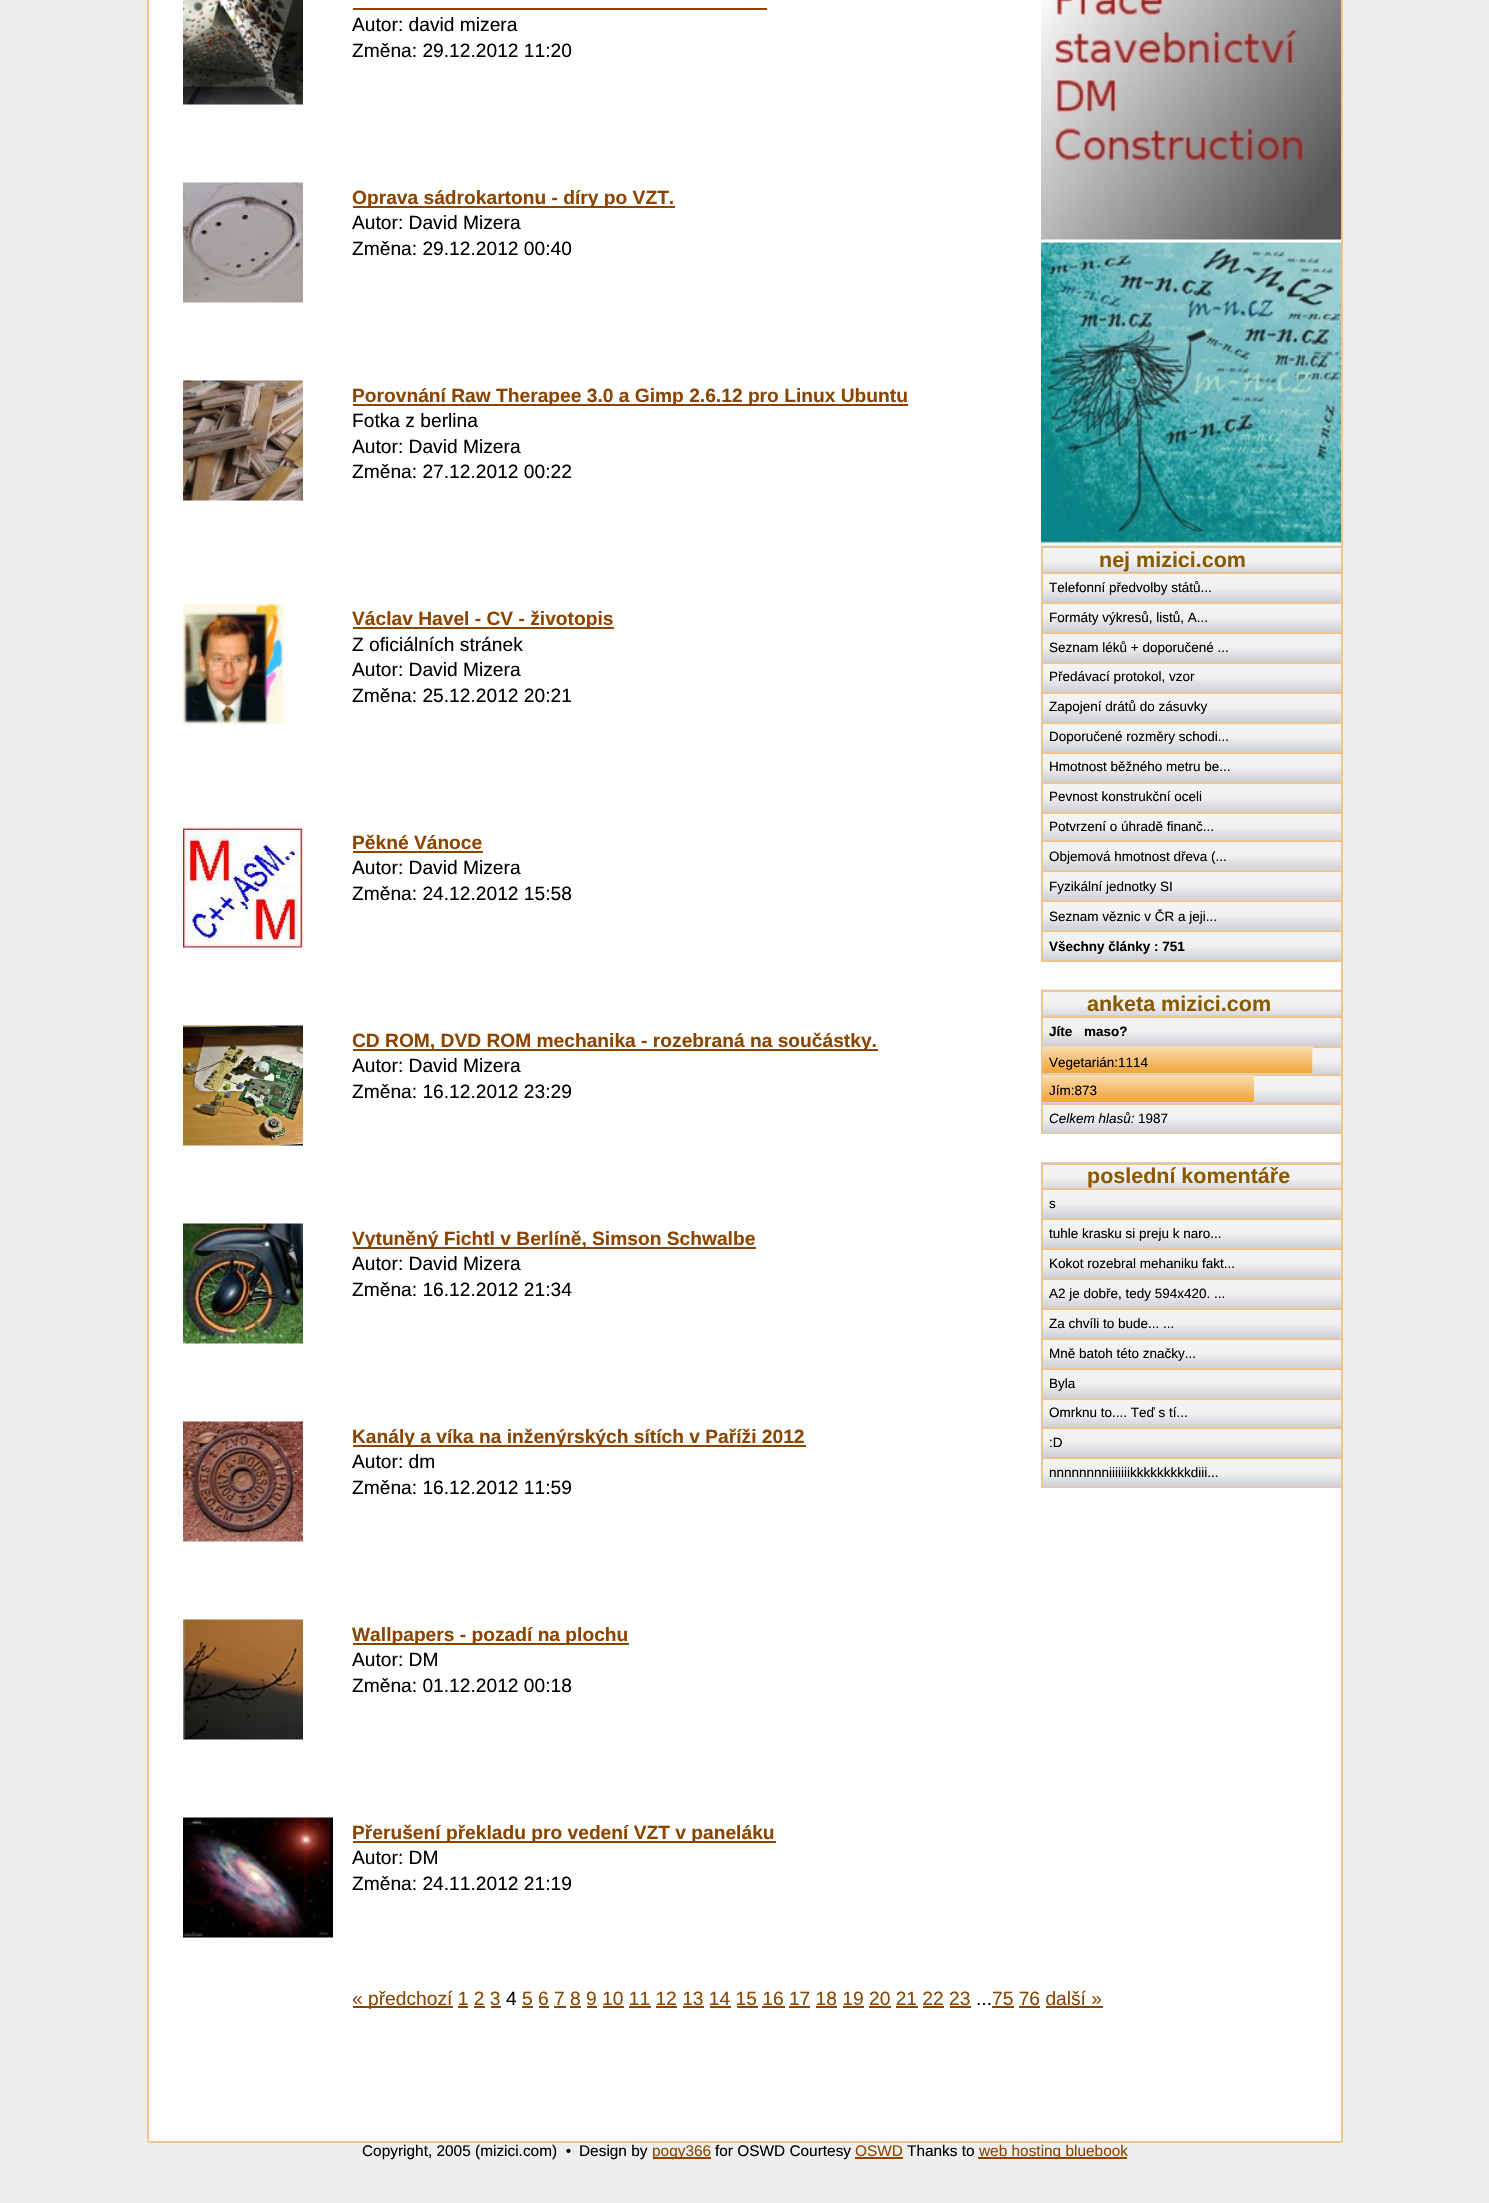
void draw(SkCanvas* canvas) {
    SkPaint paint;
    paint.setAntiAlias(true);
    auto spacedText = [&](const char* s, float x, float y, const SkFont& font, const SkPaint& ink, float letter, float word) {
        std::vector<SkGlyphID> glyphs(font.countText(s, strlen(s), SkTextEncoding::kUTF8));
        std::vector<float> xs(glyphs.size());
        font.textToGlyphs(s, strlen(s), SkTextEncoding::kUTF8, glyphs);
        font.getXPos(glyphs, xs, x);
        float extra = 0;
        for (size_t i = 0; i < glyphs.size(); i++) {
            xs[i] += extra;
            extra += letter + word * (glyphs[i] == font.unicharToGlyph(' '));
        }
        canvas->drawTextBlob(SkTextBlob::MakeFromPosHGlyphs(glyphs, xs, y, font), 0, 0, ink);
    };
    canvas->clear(0xFFEEEEEE);
    paint.setColor(0xFFFFFFFF);
    canvas->drawRect(SkRect::MakeXYWH(149, 0, 1192, 2141), paint);
    paint.setColor(0xFFEEC591);
    canvas->drawRect(SkRect::MakeXYWH(1341, 0, 2, 2142), paint);
    canvas->drawRect(SkRect::MakeXYWH(147, 0, 2, 2142), paint);
    canvas->drawImageRect(SkImages::DeferredFromEncodedData(SkData::MakeFromFileName("img1.png")), SkRect::MakeXYWH(183, 0, 120, 105), SkSamplingOptions());
    paint.setColor(0xFF8B4500);
    canvas->drawRect(SkRect::MakeXYWH(353, 8, 414, 2), paint);
    SkFont font1(fontMgr->matchFamilyStyle("Liberation Sans", SkFontStyle::Normal()), 19.2f);
    font1.setSubpixel(true);
    paint.setColor(0xFF000000);
    canvas->drawString("Autor: david mizera", 352, 31, font1, paint);
    canvas->drawString("Změna: 29.12.2012 11:20", 352, 57, font1, paint);
    canvas->drawImageRect(SkImages::DeferredFromEncodedData(SkData::MakeFromFileName("img2.png")), SkRect::MakeXYWH(183, 182, 120, 121), SkSamplingOptions());
    paint.setColor(0xFF8B4500);
    canvas->drawRect(SkRect::MakeXYWH(353, 206, 322, 2), paint);
    SkFont font2(fontMgr->matchFamilyStyle("Liberation Sans", SkFontStyle::Bold()), 19.2f);
    font2.setSubpixel(true);
    canvas->drawString("Oprava sádrokartonu - díry po VZT.", 352, 204, font2, paint);
    paint.setColor(0xFF000000);
    canvas->drawString("Autor: David Mizera", 352, 229, font1, paint);
    canvas->drawString("Změna: 29.12.2012 00:40", 352, 255, font1, paint);
    canvas->drawImageRect(SkImages::DeferredFromEncodedData(SkData::MakeFromFileName("img3.png")), SkRect::MakeXYWH(183, 380, 120, 121), SkSamplingOptions());
    paint.setColor(0xFF8B4500);
    canvas->drawRect(SkRect::MakeXYWH(353, 404, 555, 2), paint);
    canvas->drawString("Porovnání Raw Therapee 3.0 a Gimp 2.6.12 pro Linux Ubuntu", 352, 402, font2, paint);
    paint.setColor(0xFF000000);
    canvas->drawString("Fotka z berlina", 352, 427, font1, paint);
    canvas->drawString("Autor: David Mizera", 352, 453, font1, paint);
    canvas->drawString("Změna: 27.12.2012 00:22", 352, 478, font1, paint);
    canvas->drawImageRect(SkImages::DeferredFromEncodedData(SkData::MakeFromFileName("img4.png")), SkRect::MakeXYWH(183, 604, 101, 120), SkSamplingOptions());
    paint.setColor(0xFF8B4500);
    canvas->drawRect(SkRect::MakeXYWH(353, 627, 261, 2), paint);
    canvas->drawString("Václav Havel - CV - životopis", 352, 625, font2, paint);
    paint.setColor(0xFF000000);
    canvas->drawString("Z oficiálních stránek", 352, 651, font1, paint);
    canvas->drawString("Autor: David Mizera", 352, 676, font1, paint);
    canvas->drawString("Změna: 25.12.2012 20:21", 352, 702, font1, paint);
    canvas->drawImageRect(SkImages::DeferredFromEncodedData(SkData::MakeFromFileName("img5.png")), SkRect::MakeXYWH(1041, 0, 300, 240), SkSamplingOptions());
    canvas->drawImageRect(SkImages::DeferredFromEncodedData(SkData::MakeFromFileName("img6.png")), SkRect::MakeXYWH(1041, 242, 300, 301), SkSamplingOptions());
    canvas->drawImageRect(SkImages::DeferredFromEncodedData(SkData::MakeFromFileName("img7.png")), SkRect::MakeXYWH(1041, 545, 300, 26), SkSamplingOptions());
    paint.setColor(0xFFEEC591);
    canvas->drawRect(SkRect::MakeXYWH(1041, 546, 300, 2), paint);
    canvas->drawRect(SkRect::MakeXYWH(1041, 546, 2, 26), paint);
    canvas->drawImageRect(SkImages::DeferredFromEncodedData(SkData::MakeFromFileName("img9.png")), SkRect::MakeXYWH(1041, 571, 300, 30), SkSamplingOptions());
    SkFont font3(fontMgr->matchFamilyStyle("Liberation Sans", SkFontStyle::Bold()), 21.5f);
    font3.setSubpixel(true);
    paint.setColor(0xFF8B5A00);
    canvas->drawString("nej mizici.com", 1099, 567, font3, paint);
    canvas->drawImageRect(SkImages::DeferredFromEncodedData(SkData::MakeFromFileName("img8.png")), SkRect::MakeXYWH(1043, 839, 298, 91), SkSamplingOptions());
    paint.setColor(0xFFEEC591);
    canvas->drawRect(SkRect::MakeXYWH(1041, 572, 300, 2), paint);
    canvas->drawRect(SkRect::MakeXYWH(1041, 572, 2, 30), paint);
    SkFont font4(fontMgr->matchFamilyStyle("Liberation Sans", SkFontStyle::Normal()), 13.5f);
    font4.setSubpixel(true);
    paint.setColor(0xFF000000);
    canvas->drawString("Telefonní předvolby států...", 1049, 592, font4, paint);
    canvas->drawImageRect(SkImages::DeferredFromEncodedData(SkData::MakeFromFileName("img9.png")), SkRect::MakeXYWH(1041, 601, 300, 30), SkSamplingOptions());
    paint.setColor(0xFFEEC591);
    canvas->drawRect(SkRect::MakeXYWH(1041, 602, 300, 2), paint);
    canvas->drawRect(SkRect::MakeXYWH(1041, 602, 2, 30), paint);
    paint.setColor(0xFF000000);
    canvas->drawString("Formáty výkresů, listů, A...", 1049, 622, font4, paint);
    canvas->drawImageRect(SkImages::DeferredFromEncodedData(SkData::MakeFromFileName("img9.png")), SkRect::MakeXYWH(1041, 631, 300, 30), SkSamplingOptions());
    paint.setColor(0xFFEEC591);
    canvas->drawRect(SkRect::MakeXYWH(1041, 632, 300, 2), paint);
    canvas->drawRect(SkRect::MakeXYWH(1041, 632, 2, 30), paint);
    paint.setColor(0xFF000000);
    canvas->drawString("Seznam léků + doporučené ...", 1049, 652, font4, paint);
    canvas->drawImageRect(SkImages::DeferredFromEncodedData(SkData::MakeFromFileName("img9.png")), SkRect::MakeXYWH(1041, 661, 300, 30), SkSamplingOptions());
    paint.setColor(0xFFEEC591);
    canvas->drawRect(SkRect::MakeXYWH(1041, 662, 300, 2), paint);
    canvas->drawRect(SkRect::MakeXYWH(1041, 662, 2, 30), paint);
    paint.setColor(0xFF000000);
    canvas->drawString("Předávací protokol, vzor", 1049, 681, font4, paint);
    canvas->drawImageRect(SkImages::DeferredFromEncodedData(SkData::MakeFromFileName("img9.png")), SkRect::MakeXYWH(1041, 691, 300, 30), SkSamplingOptions());
    paint.setColor(0xFFEEC591);
    canvas->drawRect(SkRect::MakeXYWH(1041, 692, 300, 2), paint);
    canvas->drawRect(SkRect::MakeXYWH(1041, 692, 2, 30), paint);
    paint.setColor(0xFF000000);
    canvas->drawString("Zapojení drátů do zásuvky", 1049, 711, font4, paint);
    canvas->drawImageRect(SkImages::DeferredFromEncodedData(SkData::MakeFromFileName("img9.png")), SkRect::MakeXYWH(1041, 721, 300, 30), SkSamplingOptions());
    paint.setColor(0xFFEEC591);
    canvas->drawRect(SkRect::MakeXYWH(1041, 722, 300, 2), paint);
    canvas->drawRect(SkRect::MakeXYWH(1041, 722, 2, 30), paint);
    paint.setColor(0xFF000000);
    canvas->drawString("Doporučené rozměry schodi...", 1049, 741, font4, paint);
    canvas->drawImageRect(SkImages::DeferredFromEncodedData(SkData::MakeFromFileName("img9.png")), SkRect::MakeXYWH(1041, 751, 300, 30), SkSamplingOptions());
    paint.setColor(0xFFEEC591);
    canvas->drawRect(SkRect::MakeXYWH(1041, 752, 300, 2), paint);
    canvas->drawRect(SkRect::MakeXYWH(1041, 752, 2, 30), paint);
    paint.setColor(0xFF000000);
    canvas->drawString("Hmotnost běžného metru be...", 1049, 771, font4, paint);
    canvas->drawImageRect(SkImages::DeferredFromEncodedData(SkData::MakeFromFileName("img9.png")), SkRect::MakeXYWH(1041, 781, 300, 30), SkSamplingOptions());
    paint.setColor(0xFFEEC591);
    canvas->drawRect(SkRect::MakeXYWH(1041, 782, 300, 2), paint);
    canvas->drawRect(SkRect::MakeXYWH(1041, 782, 2, 30), paint);
    paint.setColor(0xFF000000);
    canvas->drawString("Pevnost konstrukční oceli", 1049, 801, font4, paint);
    canvas->drawImageRect(SkImages::DeferredFromEncodedData(SkData::MakeFromFileName("img10.png")), SkRect::MakeXYWH(1041, 811, 300, 29), SkSamplingOptions());
    paint.setColor(0xFFEEC591);
    canvas->drawRect(SkRect::MakeXYWH(1041, 812, 300, 2), paint);
    canvas->drawRect(SkRect::MakeXYWH(1041, 812, 2, 28), paint);
    paint.setColor(0xFF000000);
    canvas->drawString("Potvrzení o úhradě finanč...", 1049, 831, font4, paint);
    canvas->drawImageRect(SkImages::DeferredFromEncodedData(SkData::MakeFromFileName("img11.png")), SkRect::MakeXYWH(1041, 839, 300, 31), SkSamplingOptions());
    paint.setColor(0xFFEEC591);
    canvas->drawRect(SkRect::MakeXYWH(1041, 840, 300, 2), paint);
    canvas->drawRect(SkRect::MakeXYWH(1041, 840, 2, 30), paint);
    paint.setColor(0xFF000000);
    canvas->drawString("Objemová hmotnost dřeva (...", 1049, 861, font4, paint);
    canvas->drawImageRect(SkImages::DeferredFromEncodedData(SkData::MakeFromFileName("img12.png")), SkRect::MakeXYWH(1041, 869, 300, 31), SkSamplingOptions());
    paint.setColor(0xFFEEC591);
    canvas->drawRect(SkRect::MakeXYWH(1041, 870, 300, 2), paint);
    canvas->drawRect(SkRect::MakeXYWH(1041, 870, 2, 30), paint);
    paint.setColor(0xFF000000);
    canvas->drawString("Fyzikální jednotky SI", 1049, 891, font4, paint);
    canvas->drawImageRect(SkImages::DeferredFromEncodedData(SkData::MakeFromFileName("img12.png")), SkRect::MakeXYWH(1041, 899, 300, 31), SkSamplingOptions());
    paint.setColor(0xFFEEC591);
    canvas->drawRect(SkRect::MakeXYWH(1041, 900, 300, 2), paint);
    canvas->drawRect(SkRect::MakeXYWH(1041, 900, 2, 30), paint);
    paint.setColor(0xFF000000);
    canvas->drawString("Seznam věznic v ČR a jeji...", 1049, 921, font4, paint);
    canvas->drawImageRect(SkImages::DeferredFromEncodedData(SkData::MakeFromFileName("img13.png")), SkRect::MakeXYWH(1041, 929, 300, 31), SkSamplingOptions());
    paint.setColor(0xFFEEC591);
    canvas->drawRect(SkRect::MakeXYWH(1041, 930, 300, 2), paint);
    canvas->drawRect(SkRect::MakeXYWH(1041, 960, 300, 2), paint);
    canvas->drawRect(SkRect::MakeXYWH(1041, 930, 2, 32), paint);
    SkFont font5(fontMgr->matchFamilyStyle("Liberation Sans", SkFontStyle::Bold()), 13.5f);
    font5.setSubpixel(true);
    paint.setColor(0xFF000000);
    canvas->drawString("Všechny články : 751", 1049, 951, font5, paint);
    canvas->drawImageRect(SkImages::DeferredFromEncodedData(SkData::MakeFromFileName("img7.png")), SkRect::MakeXYWH(1041, 989, 300, 26), SkSamplingOptions());
    paint.setColor(0xFFEEC591);
    canvas->drawRect(SkRect::MakeXYWH(1041, 990, 300, 2), paint);
    canvas->drawRect(SkRect::MakeXYWH(1041, 990, 2, 26), paint);
    paint.setColor(0xFF8B5A00);
    canvas->drawString("anketa mizici.com", 1087, 1011, font3, paint);
    canvas->drawImageRect(SkImages::DeferredFromEncodedData(SkData::MakeFromFileName("img14.png")), SkRect::MakeXYWH(1313, 1073, 28, 1), SkSamplingOptions());
    canvas->drawImageRect(SkImages::DeferredFromEncodedData(SkData::MakeFromFileName("img9.png")), SkRect::MakeXYWH(1041, 1015, 300, 30), SkSamplingOptions());
    paint.setColor(0xFFEEC591);
    canvas->drawRect(SkRect::MakeXYWH(1041, 1016, 300, 2), paint);
    canvas->drawRect(SkRect::MakeXYWH(1041, 1016, 2, 30), paint);
    paint.setColor(0xFF000000);
    spacedText("Jíte maso?", 1049, 1036, font5, paint, 0, 8);
    canvas->drawImageRect(SkImages::DeferredFromEncodedData(SkData::MakeFromFileName("img10.png")), SkRect::MakeXYWH(1041, 1045, 300, 29), SkSamplingOptions());
    paint.setColor(0xFFEEC591);
    canvas->drawRect(SkRect::MakeXYWH(1041, 1046, 300, 2), paint);
    canvas->drawRect(SkRect::MakeXYWH(1041, 1046, 2, 28), paint);
    canvas->drawImageRect(SkImages::DeferredFromEncodedData(SkData::MakeFromFileName("img15.png")), SkRect::MakeXYWH(1042, 1046, 271, 28), SkSamplingOptions());
    paint.setColor(0xFFFFFFFF);
    canvas->drawRect(SkRect::MakeXYWH(1043, 1047, 270, 27), paint);
    canvas->drawImageRect(SkImages::DeferredFromEncodedData(SkData::MakeFromFileName("img16.png")), SkRect::MakeXYWH(1042, 1046, 271, 28), SkSamplingOptions());
    paint.setColor(0xFF000000);
    canvas->drawString("Vegetarián:1114", 1049, 1067, font4, paint);
    canvas->drawImageRect(SkImages::DeferredFromEncodedData(SkData::MakeFromFileName("img17.png")), SkRect::MakeXYWH(1041, 1073, 300, 29), SkSamplingOptions());
    paint.setColor(0xFFEEC591);
    canvas->drawRect(SkRect::MakeXYWH(1041, 1074, 300, 2), paint);
    canvas->drawRect(SkRect::MakeXYWH(1041, 1074, 2, 29), paint);
    canvas->drawImageRect(SkImages::DeferredFromEncodedData(SkData::MakeFromFileName("img18.png")), SkRect::MakeXYWH(1042, 1075, 1, 27), SkSamplingOptions());
    canvas->drawImageRect(SkImages::DeferredFromEncodedData(SkData::MakeFromFileName("img19.png")), SkRect::MakeXYWH(1042, 1075, 212, 27), SkSamplingOptions());
    paint.setColor(0xFF000000);
    canvas->drawString("Jím:873", 1049, 1095, font4, paint);
    canvas->drawImageRect(SkImages::DeferredFromEncodedData(SkData::MakeFromFileName("img20.png")), SkRect::MakeXYWH(1041, 1102, 300, 31), SkSamplingOptions());
    paint.setColor(0xFFEEC591);
    canvas->drawRect(SkRect::MakeXYWH(1041, 1103, 300, 2), paint);
    canvas->drawRect(SkRect::MakeXYWH(1041, 1133, 300, 1), paint);
    canvas->drawRect(SkRect::MakeXYWH(1041, 1103, 2, 31), paint);
    SkFont font6(fontMgr->matchFamilyStyle("Liberation Sans", SkFontStyle::Italic()), 13.5f);
    font6.setSubpixel(true);
    paint.setColor(0xFF000000);
    canvas->drawString("Celkem hlasů:", 1049, 1123, font6, paint);
    canvas->drawString("1987", 1138, 1123, font4, paint);
    canvas->drawImageRect(SkImages::DeferredFromEncodedData(SkData::MakeFromFileName("img21.png")), SkRect::MakeXYWH(1041, 1162, 300, 26), SkSamplingOptions());
    paint.setColor(0xFFEEC591);
    canvas->drawRect(SkRect::MakeXYWH(1041, 1163, 300, 2), paint);
    canvas->drawRect(SkRect::MakeXYWH(1041, 1163, 2, 25), paint);
    canvas->drawImageRect(SkImages::DeferredFromEncodedData(SkData::MakeFromFileName("img22.png")), SkRect::MakeXYWH(1041, 1187, 300, 211), SkSamplingOptions());
    canvas->drawImageRect(SkImages::DeferredFromEncodedData(SkData::MakeFromFileName("img23.png")), SkRect::MakeXYWH(1041, 1187, 300, 31), SkSamplingOptions());
    paint.setColor(0xFF8B5A00);
    canvas->drawString("poslední komentáře", 1087, 1183, font3, paint);
    paint.setColor(0xFFEEC591);
    canvas->drawRect(SkRect::MakeXYWH(1041, 1188, 300, 2), paint);
    canvas->drawRect(SkRect::MakeXYWH(1041, 1188, 2, 30), paint);
    paint.setColor(0xFF000000);
    canvas->drawString("s", 1049, 1208, font4, paint);
    canvas->drawImageRect(SkImages::DeferredFromEncodedData(SkData::MakeFromFileName("img12.png")), SkRect::MakeXYWH(1041, 1217, 300, 31), SkSamplingOptions());
    paint.setColor(0xFFEEC591);
    canvas->drawRect(SkRect::MakeXYWH(1041, 1218, 300, 2), paint);
    canvas->drawRect(SkRect::MakeXYWH(1041, 1218, 2, 30), paint);
    paint.setColor(0xFF000000);
    canvas->drawString("tuhle krasku si preju k naro...", 1049, 1238, font4, paint);
    canvas->drawImageRect(SkImages::DeferredFromEncodedData(SkData::MakeFromFileName("img12.png")), SkRect::MakeXYWH(1041, 1247, 300, 31), SkSamplingOptions());
    paint.setColor(0xFFEEC591);
    canvas->drawRect(SkRect::MakeXYWH(1041, 1248, 300, 2), paint);
    canvas->drawRect(SkRect::MakeXYWH(1041, 1248, 2, 30), paint);
    paint.setColor(0xFF000000);
    canvas->drawString("Kokot rozebral mehaniku fakt...", 1049, 1268, font4, paint);
    canvas->drawImageRect(SkImages::DeferredFromEncodedData(SkData::MakeFromFileName("img12.png")), SkRect::MakeXYWH(1041, 1277, 300, 31), SkSamplingOptions());
    paint.setColor(0xFFEEC591);
    canvas->drawRect(SkRect::MakeXYWH(1041, 1278, 300, 2), paint);
    canvas->drawRect(SkRect::MakeXYWH(1041, 1278, 2, 30), paint);
    paint.setColor(0xFF000000);
    canvas->drawString("A2 je dobře, tedy 594x420. ...", 1049, 1298, font4, paint);
    canvas->drawImageRect(SkImages::DeferredFromEncodedData(SkData::MakeFromFileName("img12.png")), SkRect::MakeXYWH(1041, 1307, 300, 31), SkSamplingOptions());
    paint.setColor(0xFFEEC591);
    canvas->drawRect(SkRect::MakeXYWH(1041, 1308, 300, 2), paint);
    canvas->drawRect(SkRect::MakeXYWH(1041, 1308, 2, 30), paint);
    paint.setColor(0xFF000000);
    canvas->drawString("Za chvíli to bude... ...", 1049, 1328, font4, paint);
    canvas->drawImageRect(SkImages::DeferredFromEncodedData(SkData::MakeFromFileName("img12.png")), SkRect::MakeXYWH(1041, 1337, 300, 31), SkSamplingOptions());
    paint.setColor(0xFFEEC591);
    canvas->drawRect(SkRect::MakeXYWH(1041, 1338, 300, 2), paint);
    canvas->drawRect(SkRect::MakeXYWH(1041, 1338, 2, 30), paint);
    paint.setColor(0xFF000000);
    canvas->drawString("Mně batoh této značky...", 1049, 1358, font4, paint);
    canvas->drawImageRect(SkImages::DeferredFromEncodedData(SkData::MakeFromFileName("img12.png")), SkRect::MakeXYWH(1041, 1367, 300, 31), SkSamplingOptions());
    paint.setColor(0xFFEEC591);
    canvas->drawRect(SkRect::MakeXYWH(1041, 1368, 300, 2), paint);
    canvas->drawRect(SkRect::MakeXYWH(1041, 1368, 2, 30), paint);
    paint.setColor(0xFF000000);
    canvas->drawString("Byla", 1049, 1388, font4, paint);
    canvas->drawImageRect(SkImages::DeferredFromEncodedData(SkData::MakeFromFileName("img24.png")), SkRect::MakeXYWH(1041, 1397, 300, 29), SkSamplingOptions());
    paint.setColor(0xFFEEC591);
    canvas->drawRect(SkRect::MakeXYWH(1041, 1398, 300, 2), paint);
    canvas->drawRect(SkRect::MakeXYWH(1041, 1398, 2, 29), paint);
    paint.setColor(0xFF000000);
    canvas->drawString("Omrknu to.... Teď s tí...", 1049, 1417, font4, paint);
    canvas->drawImageRect(SkImages::DeferredFromEncodedData(SkData::MakeFromFileName("img9.png")), SkRect::MakeXYWH(1041, 1426, 300, 30), SkSamplingOptions());
    paint.setColor(0xFFEEC591);
    canvas->drawRect(SkRect::MakeXYWH(1041, 1427, 300, 2), paint);
    canvas->drawRect(SkRect::MakeXYWH(1041, 1427, 2, 30), paint);
    paint.setColor(0xFF000000);
    canvas->drawString(":D", 1049, 1447, font4, paint);
    canvas->drawImageRect(SkImages::DeferredFromEncodedData(SkData::MakeFromFileName("img20.png")), SkRect::MakeXYWH(1041, 1456, 300, 31), SkSamplingOptions());
    paint.setColor(0xFFEEC591);
    canvas->drawRect(SkRect::MakeXYWH(1041, 1457, 300, 2), paint);
    canvas->drawRect(SkRect::MakeXYWH(1041, 1487, 300, 1), paint);
    canvas->drawRect(SkRect::MakeXYWH(1041, 1457, 2, 31), paint);
    paint.setColor(0xFF000000);
    canvas->drawString("nnnnnnnniiiiiiikkkkkkkkkdiii...", 1049, 1477, font4, paint);
    canvas->drawImageRect(SkImages::DeferredFromEncodedData(SkData::MakeFromFileName("img25.png")), SkRect::MakeXYWH(183, 827, 120, 121), SkSamplingOptions());
    paint.setColor(0xFF8B4500);
    canvas->drawString("Pěkné Vánoce", 352, 849, font2, paint);
    canvas->drawRect(SkRect::MakeXYWH(353, 851, 130, 2), paint);
    paint.setColor(0xFF000000);
    canvas->drawString("Autor: David Mizera", 352, 874, font1, paint);
    canvas->drawString("Změna: 24.12.2012 15:58", 352, 900, font1, paint);
    canvas->drawImageRect(SkImages::DeferredFromEncodedData(SkData::MakeFromFileName("img26.png")), SkRect::MakeXYWH(183, 1025, 120, 121), SkSamplingOptions());
    paint.setColor(0xFF8B4500);
    canvas->drawRect(SkRect::MakeXYWH(353, 1049, 525, 2), paint);
    canvas->drawString("CD ROM, DVD ROM mechanika - rozebraná na součástky.", 352, 1047, font2, paint);
    paint.setColor(0xFF000000);
    canvas->drawString("Autor: David Mizera", 352, 1072, font1, paint);
    canvas->drawString("Změna: 16.12.2012 23:29", 352, 1098, font1, paint);
    canvas->drawImageRect(SkImages::DeferredFromEncodedData(SkData::MakeFromFileName("img27.png")), SkRect::MakeXYWH(183, 1223, 120, 121), SkSamplingOptions());
    paint.setColor(0xFF8B4500);
    canvas->drawRect(SkRect::MakeXYWH(353, 1247, 403, 2), paint);
    canvas->drawString("Vytuněný Fichtl v Berlíně, Simson Schwalbe", 352, 1245, font2, paint);
    paint.setColor(0xFF000000);
    canvas->drawString("Autor: David Mizera", 352, 1270, font1, paint);
    canvas->drawString("Změna: 16.12.2012 21:34", 352, 1296, font1, paint);
    canvas->drawImageRect(SkImages::DeferredFromEncodedData(SkData::MakeFromFileName("img28.png")), SkRect::MakeXYWH(183, 1421, 120, 121), SkSamplingOptions());
    paint.setColor(0xFF8B4500);
    canvas->drawRect(SkRect::MakeXYWH(353, 1445, 453, 2), paint);
    canvas->drawString("Kanály a víka na inženýrských sítích v Paříži 2012", 352, 1443, font2, paint);
    paint.setColor(0xFF000000);
    canvas->drawString("Autor: dm", 352, 1468, font1, paint);
    canvas->drawString("Změna: 16.12.2012 11:59", 352, 1494, font1, paint);
    canvas->drawImageRect(SkImages::DeferredFromEncodedData(SkData::MakeFromFileName("img29.png")), SkRect::MakeXYWH(183, 1619, 120, 121), SkSamplingOptions());
    paint.setColor(0xFF8B4500);
    canvas->drawRect(SkRect::MakeXYWH(353, 1643, 276, 2), paint);
    canvas->drawString("Wallpapers - pozadí na plochu", 352, 1641, font2, paint);
    paint.setColor(0xFF000000);
    canvas->drawString("Autor: DM", 352, 1666, font1, paint);
    canvas->drawString("Změna: 01.12.2012 00:18", 352, 1692, font1, paint);
    canvas->drawImageRect(SkImages::DeferredFromEncodedData(SkData::MakeFromFileName("img30.png")), SkRect::MakeXYWH(183, 1817, 150, 121), SkSamplingOptions());
    paint.setColor(0xFF8B4500);
    canvas->drawRect(SkRect::MakeXYWH(353, 1841, 423, 2), paint);
    canvas->drawString("Přerušení překladu pro vedení VZT v paneláku", 352, 1839, font2, paint);
    paint.setColor(0xFF000000);
    canvas->drawString("Autor: DM", 352, 1864, font1, paint);
    canvas->drawString("Změna: 24.11.2012 21:19", 352, 1890, font1, paint);
    paint.setColor(0xFF8B4500);
    canvas->drawRect(SkRect::MakeXYWH(353, 2006, 100, 2), paint);
    canvas->drawString("« předchozí 1 2 3", 352, 2005, font1, paint);
    paint.setColor(0xFF000000);
    canvas->drawString("4", 506, 2005, font1, paint);
    paint.setColor(0xFF8B4500);
    canvas->drawString("5 6 7 8 9 10 11 12 13 14 15 16 17 18 19 20 21 22 23", 522, 2005, font1, paint);
    canvas->drawRect(SkRect::MakeXYWH(522, 2006, 11, 2), paint);
    paint.setColor(0xFF000000);
    canvas->drawString("...", 976, 2005, font1, paint);
    paint.setColor(0xFF8B4500);
    canvas->drawString("75 76 další »", 992, 2005, font1, paint);
    canvas->drawRect(SkRect::MakeXYWH(992, 2006, 22, 2), paint);
    canvas->drawRect(SkRect::MakeXYWH(458, 2006, 10, 2), paint);
    canvas->drawRect(SkRect::MakeXYWH(474, 2006, 11, 2), paint);
    canvas->drawRect(SkRect::MakeXYWH(491, 2006, 10, 2), paint);
    canvas->drawRect(SkRect::MakeXYWH(539, 2006, 10, 2), paint);
    canvas->drawRect(SkRect::MakeXYWH(554, 2006, 12, 2), paint);
    canvas->drawRect(SkRect::MakeXYWH(570, 2006, 11, 2), paint);
    canvas->drawRect(SkRect::MakeXYWH(587, 2006, 10, 2), paint);
    canvas->drawRect(SkRect::MakeXYWH(603, 2006, 21, 2), paint);
    canvas->drawRect(SkRect::MakeXYWH(629, 2006, 22, 2), paint);
    canvas->drawRect(SkRect::MakeXYWH(656, 2006, 21, 2), paint);
    canvas->drawRect(SkRect::MakeXYWH(683, 2006, 21, 2), paint);
    canvas->drawRect(SkRect::MakeXYWH(710, 2006, 21, 2), paint);
    canvas->drawRect(SkRect::MakeXYWH(737, 2006, 21, 2), paint);
    canvas->drawRect(SkRect::MakeXYWH(762, 2006, 23, 2), paint);
    canvas->drawRect(SkRect::MakeXYWH(789, 2006, 21, 2), paint);
    canvas->drawRect(SkRect::MakeXYWH(816, 2006, 21, 2), paint);
    canvas->drawRect(SkRect::MakeXYWH(843, 2006, 21, 2), paint);
    canvas->drawRect(SkRect::MakeXYWH(869, 2006, 22, 2), paint);
    canvas->drawRect(SkRect::MakeXYWH(896, 2006, 22, 2), paint);
    canvas->drawRect(SkRect::MakeXYWH(923, 2006, 21, 2), paint);
    canvas->drawRect(SkRect::MakeXYWH(950, 2006, 21, 2), paint);
    canvas->drawRect(SkRect::MakeXYWH(1019, 2006, 21, 2), paint);
    canvas->drawRect(SkRect::MakeXYWH(1046, 2006, 57, 2), paint);
    paint.setColor(0xFFEEC591);
    canvas->drawRect(SkRect::MakeXYWH(149, 2141, 1192, 2), paint);
    SkFont font7(fontMgr->matchFamilyStyle("Liberation Sans", SkFontStyle::Normal()), 15.4f);
    font7.setSubpixel(true);
    paint.setColor(0xFF000000);
    canvas->drawString("Copyright, 2005 (mizici.com)  •", 362, 2156, font7, paint);
    canvas->drawString("Design by", 579, 2156, font7, paint);
    paint.setColor(0xFF8B4500);
    canvas->drawRect(SkRect::MakeXYWH(653, 2157, 58, 2), paint);
    canvas->drawString("pogy366", 652, 2156, font7, paint);
    paint.setColor(0xFF000000);
    canvas->drawString("for OSWD Courtesy", 715, 2156, font7, paint);
    paint.setColor(0xFF8B4500);
    canvas->drawString("OSWD", 855, 2156, font7, paint);
    canvas->drawRect(SkRect::MakeXYWH(855, 2157, 48, 2), paint);
    paint.setColor(0xFF000000);
    canvas->drawString("Thanks to", 907, 2156, font7, paint);
    paint.setColor(0xFF8B4500);
    canvas->drawRect(SkRect::MakeXYWH(978, 2157, 149, 2), paint);
    canvas->drawString("web hosting bluebook", 979, 2156, font7, paint);
}
